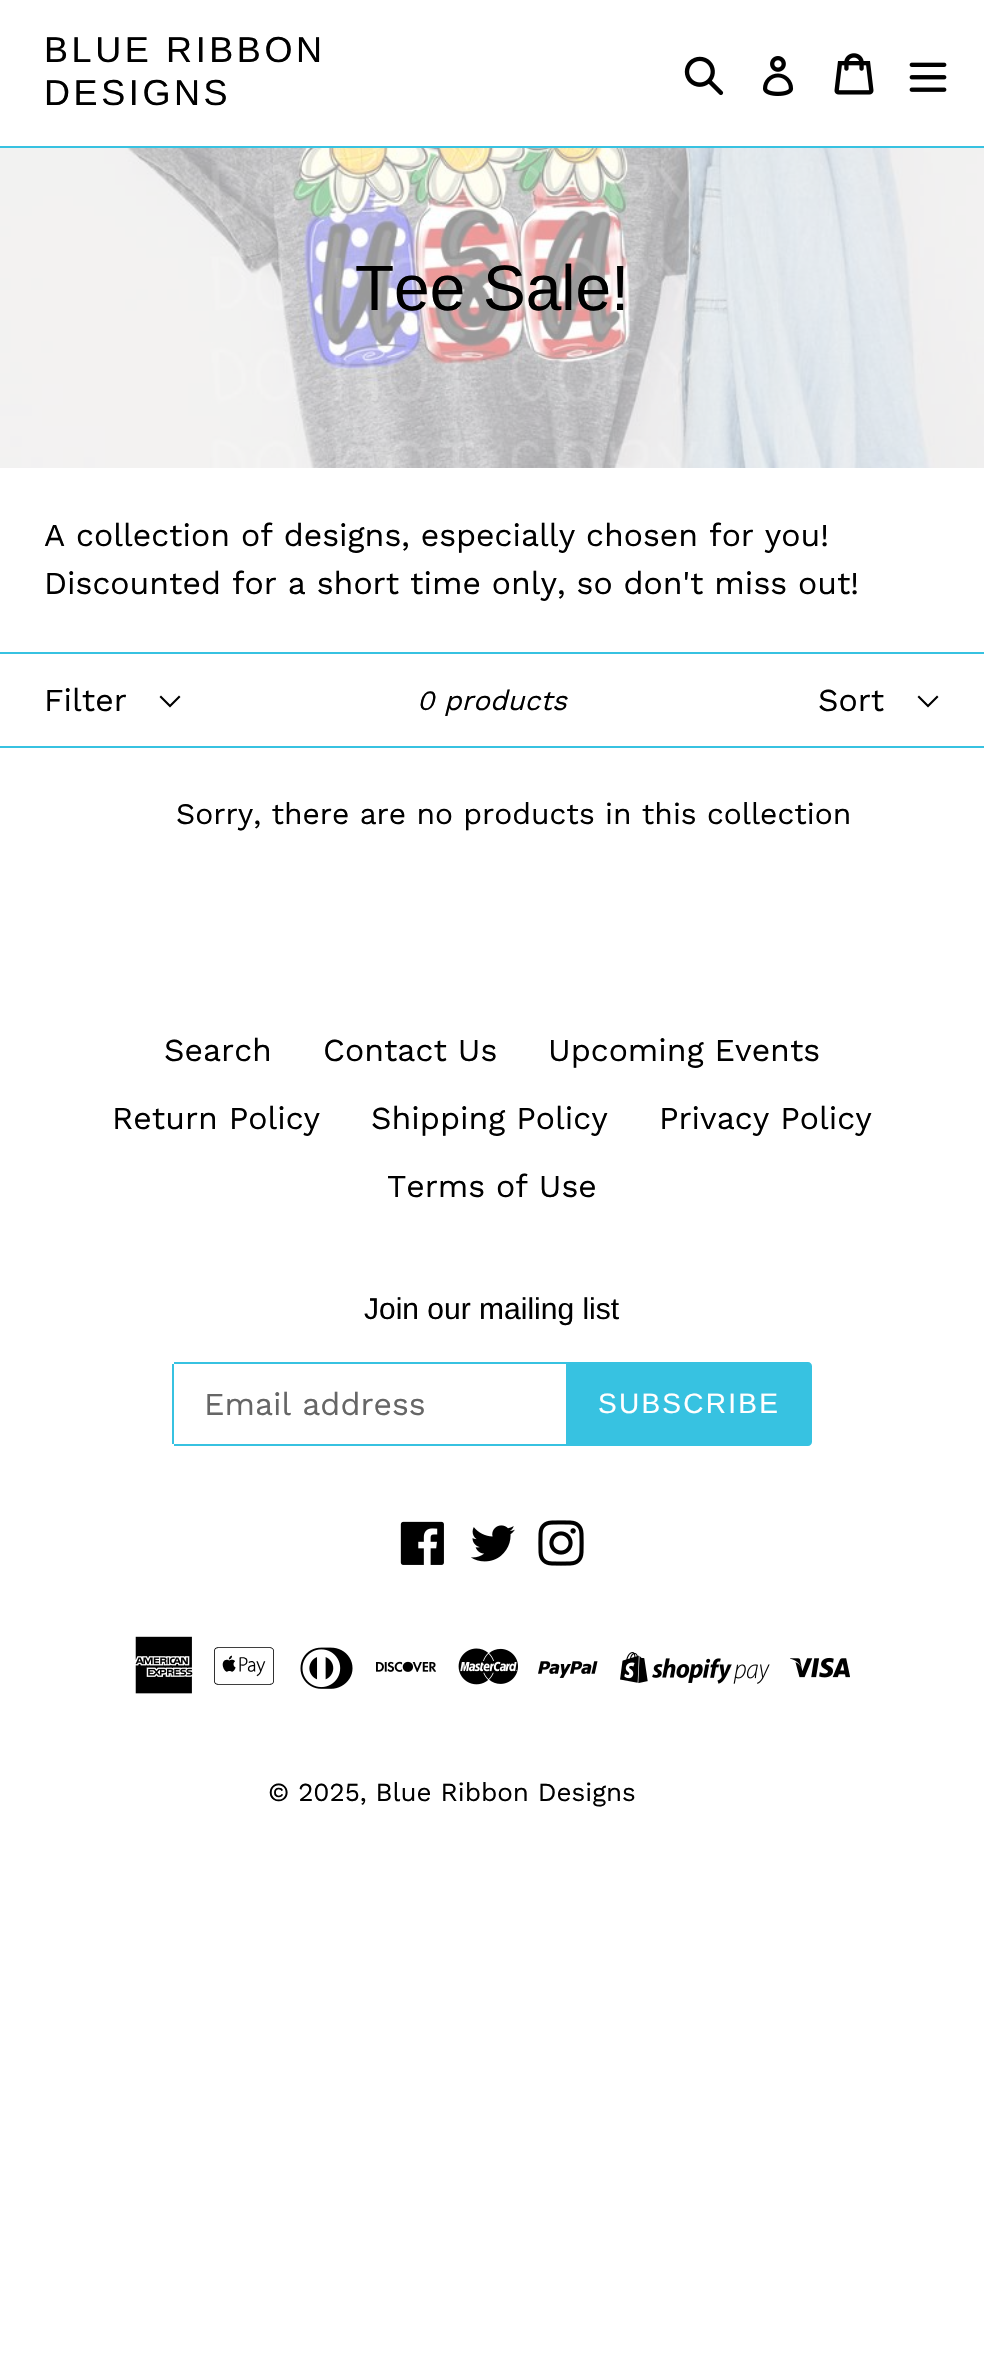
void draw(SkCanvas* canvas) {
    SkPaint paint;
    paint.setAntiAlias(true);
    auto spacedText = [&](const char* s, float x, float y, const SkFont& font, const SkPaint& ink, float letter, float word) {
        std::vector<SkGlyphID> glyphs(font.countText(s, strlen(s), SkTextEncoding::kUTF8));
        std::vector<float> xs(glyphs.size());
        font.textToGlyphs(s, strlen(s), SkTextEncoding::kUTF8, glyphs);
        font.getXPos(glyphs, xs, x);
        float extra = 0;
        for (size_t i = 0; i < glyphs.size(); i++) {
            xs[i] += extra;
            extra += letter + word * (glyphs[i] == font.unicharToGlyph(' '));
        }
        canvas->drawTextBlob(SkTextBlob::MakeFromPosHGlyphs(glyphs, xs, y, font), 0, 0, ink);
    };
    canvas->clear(0xFFFFFFFF);
    paint.setColor(0xFF37C2E1);
    canvas->drawRect(SkRect::MakeXYWH(0, 146, 984, 2), paint);
    SkFont font1(fontMgr->matchFamilyStyle("Liberation Sans", SkFontStyle::Normal()), 36);
    font1.setSubpixel(true);
    paint.setColor(0xFF000000);
    spacedText("BLUE RIBBON", 44, 62, font1, paint, 3.6f, 0);
    spacedText("DESIGNS", 44, 105, font1, paint, 3.6f, 0);
    canvas->drawImageRect(SkImages::DeferredFromEncodedData(SkData::MakeFromFileName("img1.png")), SkRect::MakeXYWH(684, 56, 40, 40), SkSamplingOptions());
    canvas->drawImageRect(SkImages::DeferredFromEncodedData(SkData::MakeFromFileName("img2.png")), SkRect::MakeXYWH(763, 56, 31, 40), SkSamplingOptions());
    canvas->drawImageRect(SkImages::DeferredFromEncodedData(SkData::MakeFromFileName("img3.png")), SkRect::MakeXYWH(834, 53, 40, 42), SkSamplingOptions());
    canvas->drawImageRect(SkImages::DeferredFromEncodedData(SkData::MakeFromFileName("img4.png")), SkRect::MakeXYWH(909, 62, 38, 30), SkSamplingOptions());
    canvas->drawImageRect(SkImages::DeferredFromEncodedData(SkData::MakeFromFileName("img5.png")), SkRect::MakeXYWH(0, 148, 984, 320), SkSamplingOptions());
    SkFont font2(fontMgr->matchFamilyStyle("Liberation Sans", SkFontStyle::Normal()), 64);
    font2.setSubpixel(true);
    canvas->drawString("Tee Sale!", 355, 310, font2, paint);
    SkFont font3(fontMgr->matchFamilyStyle("Work Sans", SkFontStyle::Normal()), 32);
    font3.setSubpixel(true);
    canvas->drawString("A collection of designs, especially chosen for you!", 44, 546, font3, paint);
    canvas->drawString("Discounted for a short time only, so don't miss out!", 44, 594, font3, paint);
    paint.setColor(0xFF37C2E1);
    canvas->drawRect(SkRect::MakeXYWH(0, 652, 984, 2), paint);
    canvas->drawRect(SkRect::MakeXYWH(0, 746, 984, 2), paint);
    paint.setColor(0xFF000000);
    canvas->drawPath(SkPathBuilder().moveTo(170, 707.5f).lineTo(159.5f, 697).lineTo(161, 695.5f).lineTo(170, 704.5f).lineTo(179, 695.5f).lineTo(180.5f, 697).close().detach(), paint);
    canvas->drawString("Filter", 44, 711, font3, paint);
    SkFont font4(fontMgr->matchFamilyStyle("Work Sans", SkFontStyle::Italic()), 28);
    font4.setSubpixel(true);
    canvas->drawString("0 products", 417, 710, font4, paint);
    canvas->drawPath(SkPathBuilder().moveTo(928, 707.5f).lineTo(917.5f, 697).lineTo(919, 695.5f).lineTo(928, 704.5f).lineTo(937, 695.5f).lineTo(938.5f, 697).close().detach(), paint);
    canvas->drawString("Sort", 818, 711, font3, paint);
    SkFont font5(fontMgr->matchFamilyStyle("Work Sans", SkFontStyle::Normal()), 30);
    font5.setSubpixel(true);
    canvas->drawString("Sorry, there are no products in this collection", 176, 824, font5, paint);
    canvas->drawString("Search", 164, 1061, font3, paint);
    canvas->drawString("Contact Us", 323, 1061, font3, paint);
    canvas->drawString("Upcoming Events", 548, 1061, font3, paint);
    canvas->drawString("Return Policy", 112, 1129, font3, paint);
    canvas->drawString("Shipping Policy", 371, 1129, font3, paint);
    canvas->drawString("Privacy Policy", 659, 1129, font3, paint);
    canvas->drawString("Terms of Use", 387, 1197, font3, paint);
    SkFont font6(fontMgr->matchFamilyStyle("Liberation Sans", SkFontStyle::Normal()), 30);
    font6.setSubpixel(true);
    canvas->drawString("Join our mailing list", 364, 1319, font6, paint);
    paint.setColor(0xFF37C2E1);
    canvas->drawRect(SkRect::MakeXYWH(174, 1362, 392, 2), paint);
    canvas->drawRect(SkRect::MakeXYWH(174, 1444, 392, 2), paint);
    canvas->drawRect(SkRect::MakeXYWH(172, 1364, 2, 80), paint);
    paint.setColor(0xFF666666);
    canvas->drawString("Email address", 204, 1415, font3, paint);
    paint.setColor(0xFF37C2E1);
    canvas->drawPath(SkPathBuilder().moveTo(566, 1362).lineTo(808, 1362).cubicTo(810, 1362, 812, 1364, 812, 1366).lineTo(812, 1442).cubicTo(812, 1444, 810, 1446, 808, 1446).lineTo(566, 1446).close().detach(), paint);
    SkFont font7(fontMgr->matchFamilyStyle("Liberation Sans", SkFontStyle::Normal()), 28);
    font7.setSubpixel(true);
    paint.setColor(0xFFFFFFFF);
    spacedText("SUBSCRIBE", 598, 1413, font7, paint, 2.25f, 0);
    canvas->drawImageRect(SkImages::DeferredFromEncodedData(SkData::MakeFromFileName("img6.png")), SkRect::MakeXYWH(400, 1521, 44, 44), SkSamplingOptions());
    canvas->drawImageRect(SkImages::DeferredFromEncodedData(SkData::MakeFromFileName("img7.png")), SkRect::MakeXYWH(471, 1525, 44, 37), SkSamplingOptions());
    canvas->drawImageRect(SkImages::DeferredFromEncodedData(SkData::MakeFromFileName("img8.png")), SkRect::MakeXYWH(538, 1520, 46, 46), SkSamplingOptions());
    canvas->drawImageRect(SkImages::DeferredFromEncodedData(SkData::MakeFromFileName("img9.png")), SkRect::MakeXYWH(135, 1636, 58, 58), SkSamplingOptions());
    canvas->drawImageRect(SkImages::DeferredFromEncodedData(SkData::MakeFromFileName("img10.png")), SkRect::MakeXYWH(214, 1647, 60, 38), SkSamplingOptions());
    canvas->drawImageRect(SkImages::DeferredFromEncodedData(SkData::MakeFromFileName("img11.png")), SkRect::MakeXYWH(300, 1647, 53, 42), SkSamplingOptions());
    canvas->drawImageRect(SkImages::DeferredFromEncodedData(SkData::MakeFromFileName("img12.png")), SkRect::MakeXYWH(376, 1661, 60, 11), SkSamplingOptions());
    canvas->drawImageRect(SkImages::DeferredFromEncodedData(SkData::MakeFromFileName("img13.png")), SkRect::MakeXYWH(458, 1648, 60, 37), SkSamplingOptions());
    canvas->drawImageRect(SkImages::DeferredFromEncodedData(SkData::MakeFromFileName("img14.png")), SkRect::MakeXYWH(538, 1661, 60, 17), SkSamplingOptions());
    canvas->drawImageRect(SkImages::DeferredFromEncodedData(SkData::MakeFromFileName("img15.png")), SkRect::MakeXYWH(620, 1652, 150, 32), SkSamplingOptions());
    canvas->drawImageRect(SkImages::DeferredFromEncodedData(SkData::MakeFromFileName("img16.png")), SkRect::MakeXYWH(790, 1657, 60, 21), SkSamplingOptions());
    SkFont font8(fontMgr->matchFamilyStyle("Work Sans", SkFontStyle::Normal()), 26);
    font8.setSubpixel(true);
    paint.setColor(0xFF000000);
    canvas->drawString("© 2025, Blue Ribbon Designs", 268, 1801, font8, paint);
}
